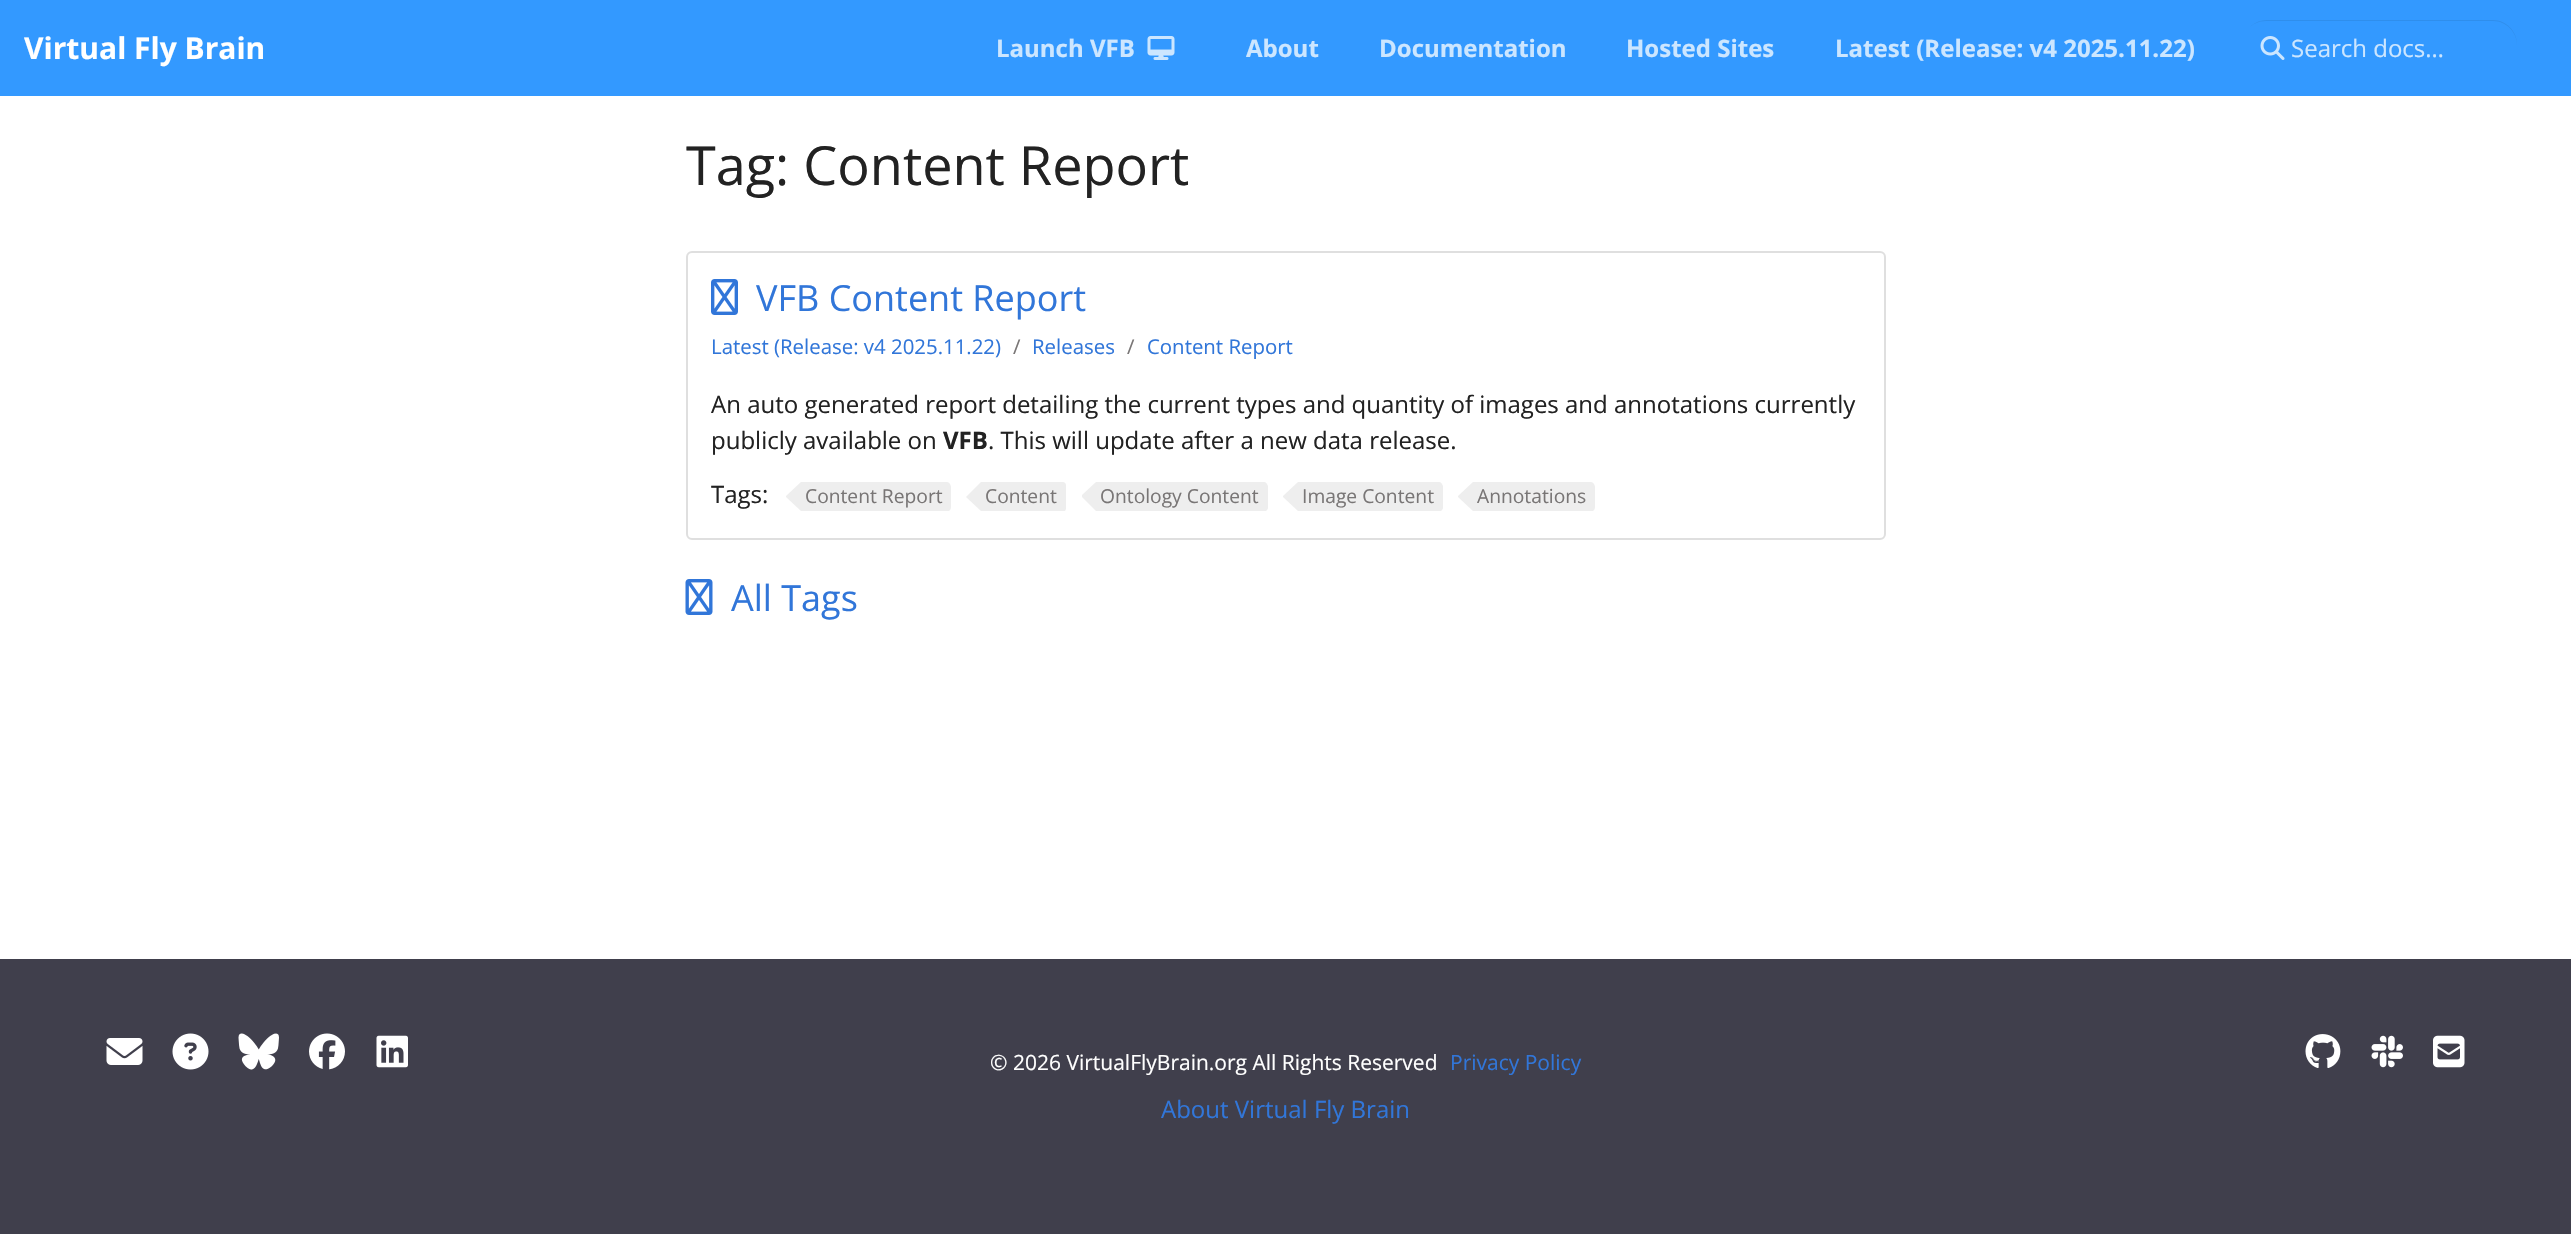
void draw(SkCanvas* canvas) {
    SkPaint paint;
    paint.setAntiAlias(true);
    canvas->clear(0xFFFFFFFF);
    paint.setColor(0xFF3399FF);
    canvas->drawRect(SkRect::MakeXYWH(0, 0, 2571, 96), paint);
    SkFont font1(fontMgr->matchFamilyStyle("Open Sans", SkFontStyle::Bold()), 30);
    font1.setSubpixel(true);
    paint.setColor(0xFFFFFFFF);
    canvas->drawString("Virtual Fly Brain", 24, 59, font1, paint);
    SkFont font2(fontMgr->matchFamilyStyle("Open Sans", SkFontStyle::Bold()), 24);
    font2.setSubpixel(true);
    paint.setColor(0xFFCCE6FF);
    canvas->drawString("Launch VFB", 996, 57, font2, paint);
    canvas->drawImageRect(SkImages::DeferredFromEncodedData(SkData::MakeFromFileName("img1.png")), SkRect::MakeXYWH(1147, 36, 28, 24), SkSamplingOptions());
    canvas->drawString("About", 1246, 57, font2, paint);
    canvas->drawString("Documentation", 1379, 57, font2, paint);
    canvas->drawString("Hosted Sites", 1626, 57, font2, paint);
    canvas->drawString("Latest (Release: v4 2025.11.22)", 1835, 57, font2, paint);
    paint.setColor(0xFF2F8EEC);
    canvas->drawPath(SkPathBuilder().moveTo(2266, 21).lineTo(2493, 21).cubicTo(2506, 21, 2517, 32, 2517, 45).lineTo(2517, 44).cubicTo(2517, 31, 2506, 20, 2493, 20).lineTo(2267, 20).cubicTo(2259, 20, 2252, 24, 2248, 29).cubicTo(2252, 24, 2259, 21, 2266, 21).close().detach(), paint);
    canvas->drawImageRect(SkImages::DeferredFromEncodedData(SkData::MakeFromFileName("img2.png")), SkRect::MakeXYWH(2260, 36, 25, 24), SkSamplingOptions());
    SkFont font3(fontMgr->matchFamilyStyle("Open Sans", SkFontStyle::Normal()), 24);
    font3.setSubpixel(true);
    paint.setColor(0xFFCCE6FF);
    canvas->drawString("Search docs…", 2291, 57, font3, paint);
    SkFont font4(fontMgr->matchFamilyStyle("Open Sans", SkFontStyle::Normal()), 54);
    font4.setSubpixel(true);
    paint.setColor(0xFF222222);
    canvas->drawString("Tag: Content Report", 686, 185, font4, paint);
    paint.setStyle(SkPaint::kStroke_Style);
    paint.setStrokeWidth(2);
    paint.setColor(0xFFDFDFDF);
    canvas->drawRoundRect(SkRect::MakeXYWH(687, 252, 1198, 287), 5, 5, paint);
    canvas->drawImageRect(SkImages::DeferredFromEncodedData(SkData::MakeFromFileName("img3.png")), SkRect::MakeXYWH(711, 279, 27, 36), SkSamplingOptions());
    SkFont font5(fontMgr->matchFamilyStyle("Open Sans", SkFontStyle::Normal()), 36);
    font5.setSubpixel(true);
    paint.setStyle(SkPaint::kFill_Style);
    paint.setColor(0xFF3176D9);
    canvas->drawString("VFB Content Report", 756, 311, font5, paint);
    SkFont font6(fontMgr->matchFamilyStyle("Open Sans", SkFontStyle::Normal()), 20.4f);
    font6.setSubpixel(true);
    canvas->drawString("Latest (Release: v4 2025.11.22)", 711, 354, font6, paint);
    paint.setColor(0xFF797676);
    canvas->drawString("/", 1013, 354, font6, paint);
    paint.setColor(0xFF3176D9);
    canvas->drawString("Releases", 1032, 354, font6, paint);
    paint.setColor(0xFF797676);
    canvas->drawString("/", 1127, 354, font6, paint);
    paint.setColor(0xFF3176D9);
    canvas->drawString("Content Report", 1147, 354, font6, paint);
    paint.setColor(0xFF222222);
    canvas->drawString("An auto generated report detailing the current types and quantity of images and annotations currently", 711, 413, font3, paint);
    canvas->drawString("publicly available on", 711, 449, font3, paint);
    canvas->drawString("VFB", 943, 449, font2, paint);
    canvas->drawString(". This will update after a new data release.", 988, 449, font3, paint);
    canvas->drawString("Tags:", 711, 503, font3, paint);
    paint.setColor(0xFFEEEEEE);
    canvas->drawPath(SkPathBuilder().moveTo(786, 497).lineTo(786, 496).lineTo(801, 482).lineTo(947, 482).cubicTo(949, 482, 951, 485, 951, 487).lineTo(951, 507).cubicTo(951, 509, 950, 510, 949, 511).lineTo(801, 511).close().detach(), paint);
    SkFont font7(fontMgr->matchFamilyStyle("Open Sans", SkFontStyle::Normal()), 19.25f);
    font7.setSubpixel(true);
    paint.setColor(0xFF797676);
    canvas->drawString("Content Report", 805, 503, font7, paint);
    paint.setColor(0xFFEEEEEE);
    canvas->drawPath(SkPathBuilder().moveTo(966, 497).lineTo(981, 482).lineTo(1063, 482).cubicTo(1064, 482, 1066, 483, 1066, 485).lineTo(1066, 509).lineTo(1065, 511).lineTo(981, 511).close().detach(), paint);
    paint.setColor(0xFF797676);
    canvas->drawString("Content", 985, 503, font7, paint);
    paint.setColor(0xFFEEEEEE);
    canvas->drawPath(SkPathBuilder().moveTo(1082, 497).lineTo(1082, 495).lineTo(1096, 482).lineTo(1264, 482).cubicTo(1266, 482, 1267, 484, 1268, 486).lineTo(1268, 508).cubicTo(1268, 509, 1267, 510, 1266, 511).lineTo(1096, 511).close().detach(), paint);
    paint.setColor(0xFF797676);
    canvas->drawString("Ontology Content", 1100, 503, font7, paint);
    paint.setColor(0xFFEEEEEE);
    canvas->drawPath(SkPathBuilder().moveTo(1283, 497).lineTo(1283, 496).lineTo(1298, 482).lineTo(1439, 482).cubicTo(1441, 482, 1442, 484, 1443, 486).lineTo(1443, 508).cubicTo(1443, 509, 1442, 510, 1441, 511).lineTo(1298, 511).close().detach(), paint);
    paint.setColor(0xFF797676);
    canvas->drawString("Image Content", 1302, 503, font7, paint);
    paint.setColor(0xFFEEEEEE);
    canvas->drawPath(SkPathBuilder().moveTo(1458, 497).lineTo(1458, 496).lineTo(1473, 482).lineTo(1591, 482).cubicTo(1593, 482, 1595, 485, 1595, 487).lineTo(1595, 507).cubicTo(1595, 509, 1594, 510, 1593, 511).lineTo(1473, 511).close().detach(), paint);
    paint.setColor(0xFF797676);
    canvas->drawString("Annotations", 1477, 503, font7, paint);
    canvas->drawImageRect(SkImages::DeferredFromEncodedData(SkData::MakeFromFileName("img4.png")), SkRect::MakeXYWH(685, 579, 28, 36), SkSamplingOptions());
    paint.setColor(0xFF3176D9);
    canvas->drawString("All Tags", 731, 611, font5, paint);
    paint.setColor(0xFF403F4C);
    canvas->drawRect(SkRect::MakeXYWH(0, 959, 2571, 275), paint);
    canvas->drawImageRect(SkImages::DeferredFromEncodedData(SkData::MakeFromFileName("img5.png")), SkRect::MakeXYWH(106, 1038, 37, 27), SkSamplingOptions());
    canvas->drawImageRect(SkImages::DeferredFromEncodedData(SkData::MakeFromFileName("img6.png")), SkRect::MakeXYWH(172, 1033, 37, 37), SkSamplingOptions());
    canvas->drawImageRect(SkImages::DeferredFromEncodedData(SkData::MakeFromFileName("img7.png")), SkRect::MakeXYWH(238, 1033, 41, 37), SkSamplingOptions());
    canvas->drawImageRect(SkImages::DeferredFromEncodedData(SkData::MakeFromFileName("img8.png")), SkRect::MakeXYWH(309, 1033, 36, 37), SkSamplingOptions());
    canvas->drawImageRect(SkImages::DeferredFromEncodedData(SkData::MakeFromFileName("img9.png")), SkRect::MakeXYWH(376, 1035, 32, 33), SkSamplingOptions());
    SkFont font8(fontMgr->matchFamilyStyle("Open Sans", SkFontStyle::Normal()), 21);
    font8.setSubpixel(true);
    paint.setColor(0xFFFFFFFF);
    canvas->drawString("© 2026 VirtualFlyBrain.org All Rights Reserved", 990, 1070, font8, paint);
    paint.setColor(0xFF3176D9);
    canvas->drawString("Privacy Policy", 1450, 1070, font8, paint);
    canvas->drawString("About Virtual Fly Brain", 1161, 1118, font3, paint);
    canvas->drawImageRect(SkImages::DeferredFromEncodedData(SkData::MakeFromFileName("img10.png")), SkRect::MakeXYWH(2305, 1034, 36, 34), SkSamplingOptions());
    canvas->drawImageRect(SkImages::DeferredFromEncodedData(SkData::MakeFromFileName("img11.png")), SkRect::MakeXYWH(2371, 1035, 32, 33), SkSamplingOptions());
    canvas->drawImageRect(SkImages::DeferredFromEncodedData(SkData::MakeFromFileName("img12.png")), SkRect::MakeXYWH(2433, 1035, 32, 33), SkSamplingOptions());
}
